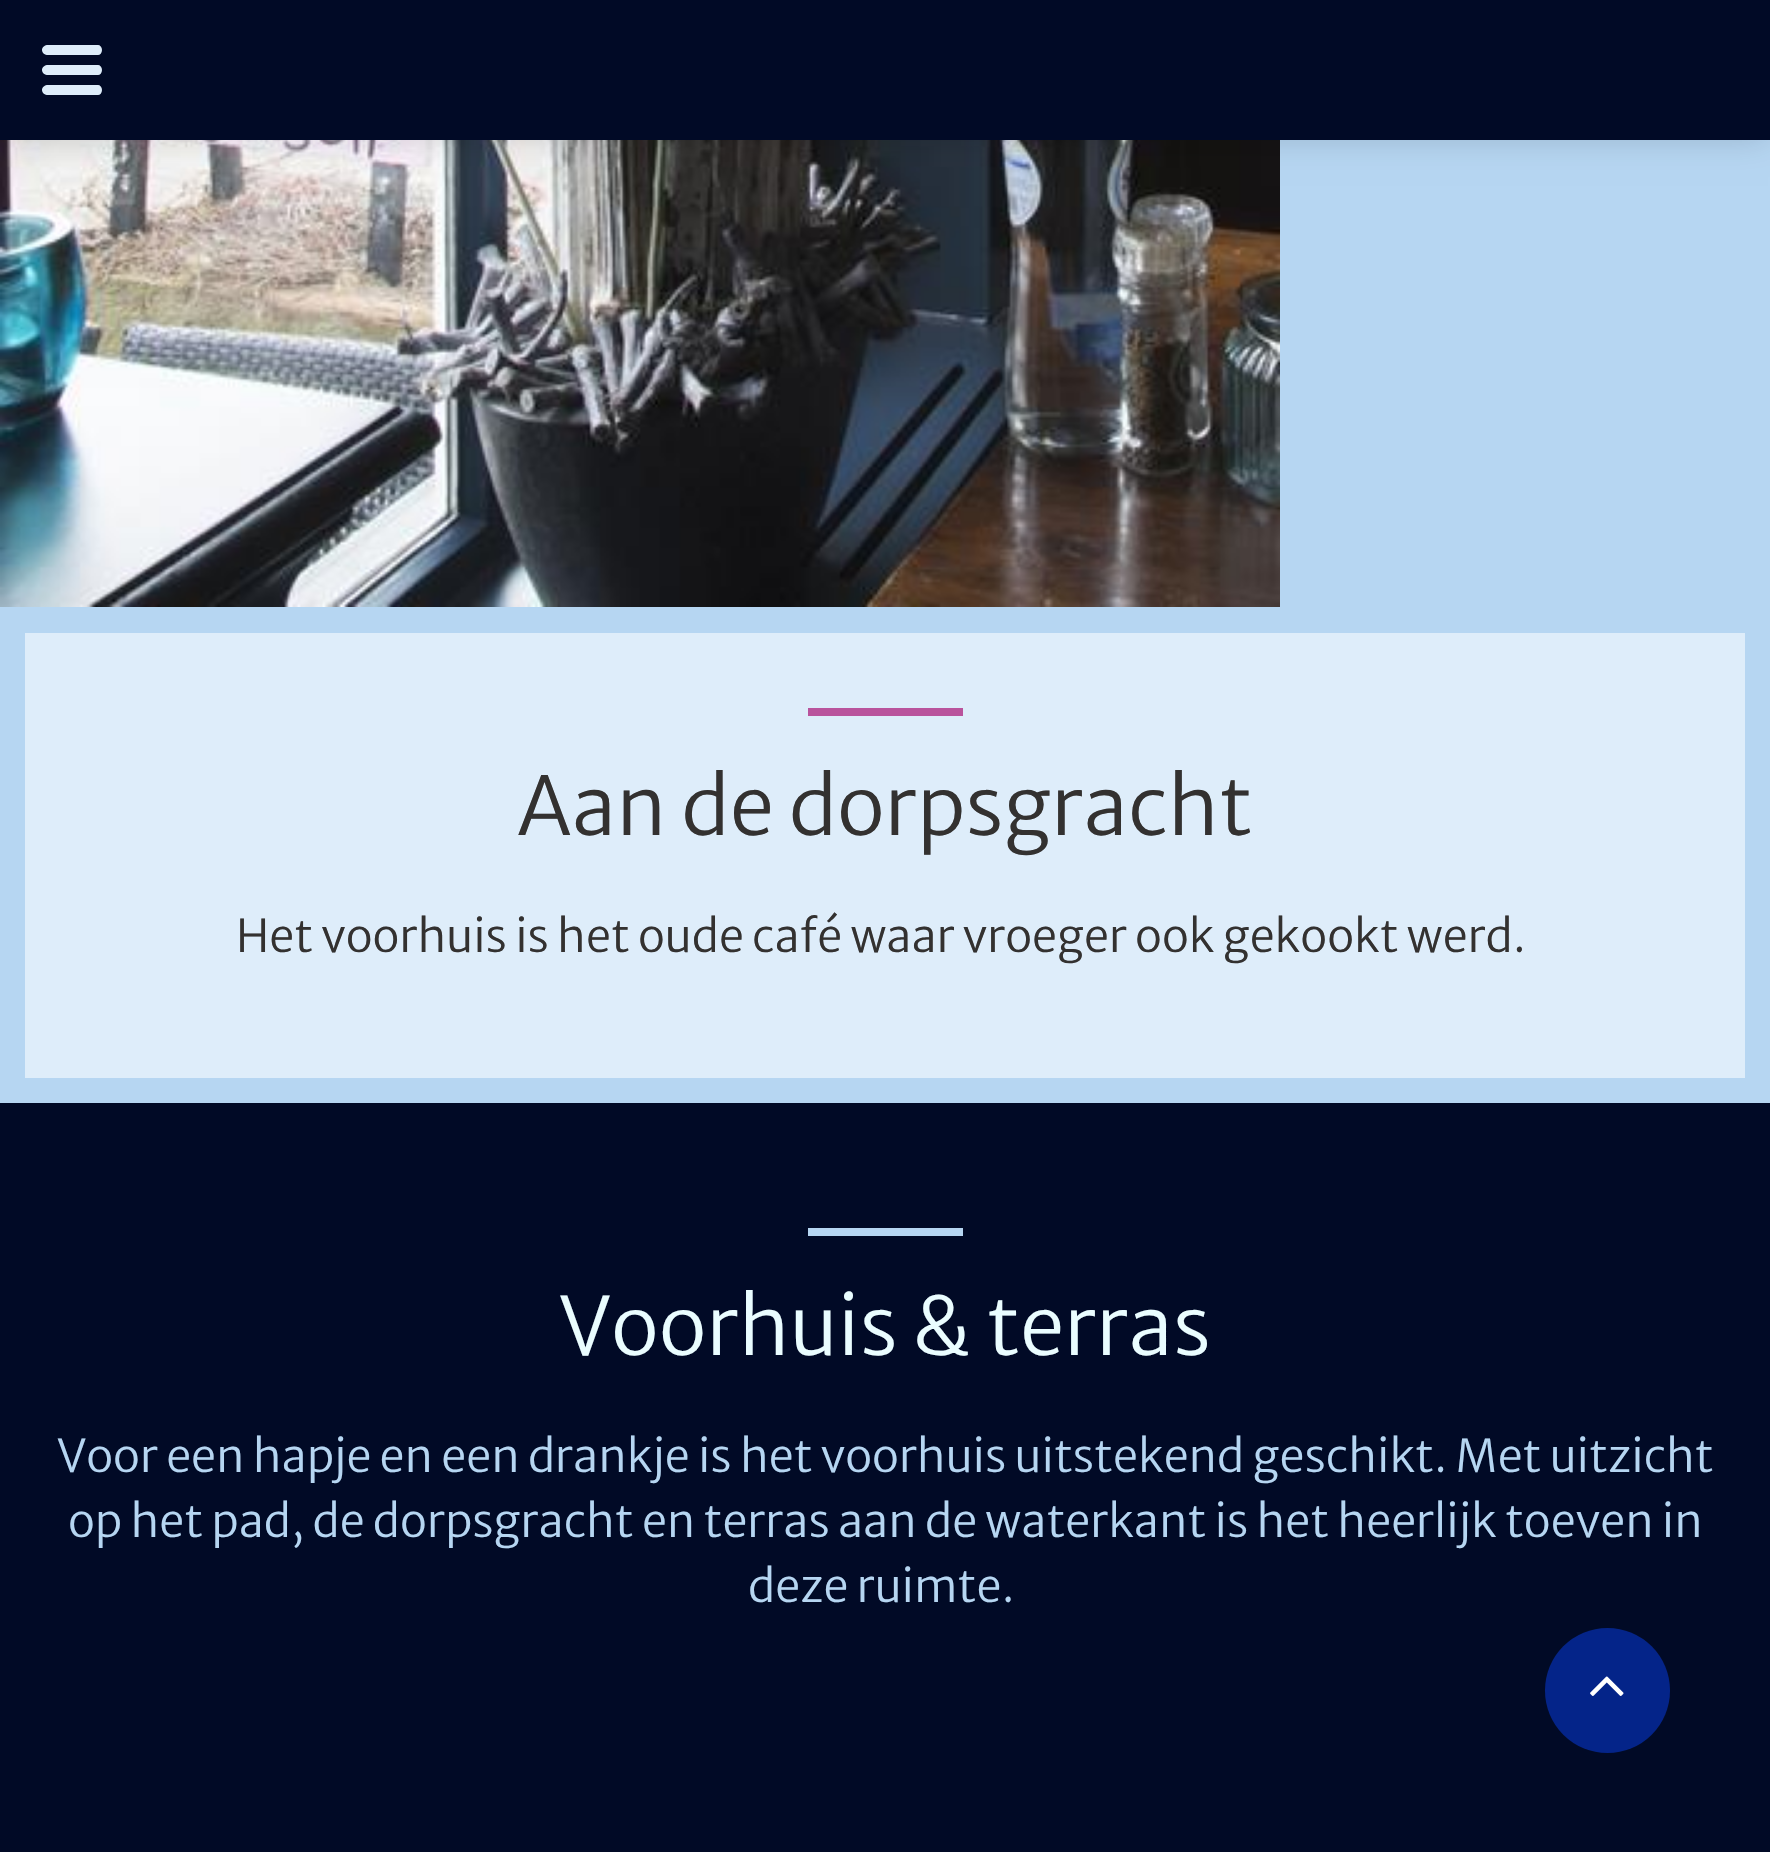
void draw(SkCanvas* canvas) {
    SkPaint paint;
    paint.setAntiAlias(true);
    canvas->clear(0xFFB6D6F2);
    canvas->drawImageRect(SkImages::DeferredFromEncodedData(SkData::MakeFromFileName("img1.png")), SkRect::MakeXYWH(0, 140, 1280, 467), SkSamplingOptions());
    paint.setColor(0x2B000000);
    paint.setMaskFilter(SkMaskFilter::MakeBlur(kNormal_SkBlurStyle, 16));
    canvas->drawRect(SkRect::MakeXYWH(3, 3, 1765, 135), paint);
    paint.setMaskFilter(nullptr);
    paint.setColor(0xFF010A26);
    canvas->drawRect(SkRect::MakeXYWH(0, 0, 1770, 140), paint);
    paint.setColor(0xFFDEEDFA);
    canvas->drawPath(SkPathBuilder().moveTo(98, 75).lineTo(48, 75).cubicTo(45, 75, 42, 73, 42, 70).cubicTo(42, 67, 45, 65, 48, 65).lineTo(98, 65).cubicTo(100, 65, 102, 67, 102, 70).cubicTo(102, 73, 100, 75, 98, 75).close().moveTo(98, 95).lineTo(48, 95).cubicTo(45, 95, 42, 93, 42, 90).cubicTo(42, 87, 45, 85, 48, 85).lineTo(98, 85).cubicTo(100, 85, 102, 87, 102, 90).cubicTo(102, 93, 100, 95, 98, 95).close().moveTo(98, 55).lineTo(48, 55).cubicTo(45, 55, 42, 53, 42, 50).cubicTo(42, 47, 45, 45, 48, 45).lineTo(98, 45).cubicTo(100, 45, 102, 47, 102, 50).cubicTo(102, 53, 100, 55, 98, 55).close().detach(), paint);
    canvas->drawRect(SkRect::MakeXYWH(25, 633, 1720, 445), paint);
    paint.setColor(0xFFB9539C);
    canvas->drawRect(SkRect::MakeXYWH(808, 708, 155, 8), paint);
    SkFont font1(fontMgr->matchFamilyStyle("Merriweather Sans", SkFontStyle(300, SkFontStyle::kNormal_Width, SkFontStyle::kUpright_Slant)), 80);
    font1.setSubpixel(true);
    paint.setColor(0xFF333130);
    canvas->drawString("Aan de dorpsgracht", 517, 835, font1, paint);
    SkFont font2(fontMgr->matchFamilyStyle("Merriweather Sans", SkFontStyle(300, SkFontStyle::kNormal_Width, SkFontStyle::kUpright_Slant)), 45);
    font2.setSubpixel(true);
    canvas->drawString("Het voorhuis is het oude café waar vroeger ook gekookt werd.", 236, 952, font2, paint);
    paint.setColor(0xFF010A26);
    canvas->drawRect(SkRect::MakeXYWH(0, 1103, 1770, 749), paint);
    paint.setColor(0xFFB6D6F2);
    canvas->drawRect(SkRect::MakeXYWH(808, 1228, 155, 8), paint);
    paint.setColor(0xFFEAFDFF);
    canvas->drawString("Voorhuis & terras", 559, 1355, font1, paint);
    paint.setColor(0xFFB6D6F2);
    canvas->drawString("Voor een hapje en een drankje is het voorhuis uitstekend geschikt. Met uitzicht", 57, 1472, font2, paint);
    canvas->drawString("op het pad, de dorpsgracht en terras aan de waterkant is het heerlijk toeven in", 68, 1537, font2, paint);
    canvas->drawString("deze ruimte.", 748, 1602, font2, paint);
    paint.setColor(0xFF042489);
    canvas->drawCircle(1607.5f, 1690.5f, 62.5f, paint);
    canvas->drawImageRect(SkImages::DeferredFromEncodedData(SkData::MakeFromFileName("img2.png")), SkRect::MakeXYWH(1590, 1676, 34, 20), SkSamplingOptions());
}
